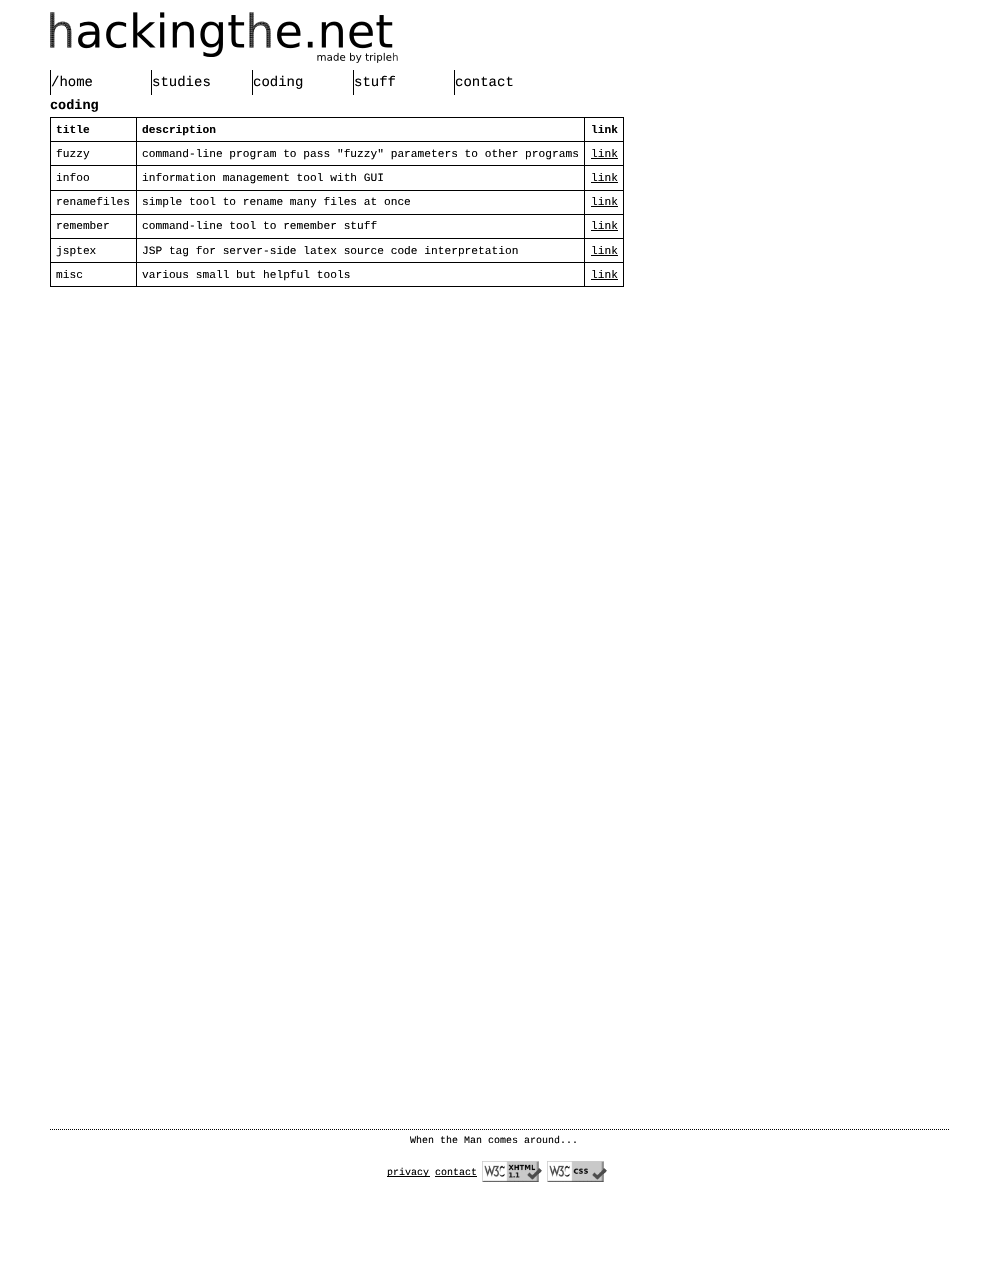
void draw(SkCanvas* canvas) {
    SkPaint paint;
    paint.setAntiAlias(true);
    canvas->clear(0xFFFFFFFF);
    canvas->drawImageRect(SkImages::DeferredFromEncodedData(SkData::MakeFromFileName("img1.png")), SkRect::MakeXYWH(50, 12, 348, 51), SkSamplingOptions());
    paint.setColor(0xFF000000);
    canvas->drawRect(SkRect::MakeXYWH(50, 70, 1, 25), paint);
    SkFont font1(fontMgr->matchFamilyStyle("Liberation Mono", SkFontStyle::Normal()), 14);
    font1.setSubpixel(true);
    canvas->drawString("/home", 51, 86, font1, paint);
    canvas->drawRect(SkRect::MakeXYWH(151, 70, 1, 25), paint);
    canvas->drawString("studies", 152, 86, font1, paint);
    canvas->drawRect(SkRect::MakeXYWH(252, 70, 1, 25), paint);
    canvas->drawString("coding", 253, 86, font1, paint);
    canvas->drawRect(SkRect::MakeXYWH(353, 70, 1, 25), paint);
    canvas->drawString("stuff", 354, 86, font1, paint);
    canvas->drawRect(SkRect::MakeXYWH(454, 70, 1, 25), paint);
    canvas->drawString("contact", 455, 86, font1, paint);
    SkFont font2(fontMgr->matchFamilyStyle("Liberation Mono", SkFontStyle::Bold()), 13.5f);
    font2.setSubpixel(true);
    canvas->drawString("coding", 50, 109, font2, paint);
    canvas->drawRect(SkRect::MakeXYWH(50, 117, 574, 1), paint);
    canvas->drawRect(SkRect::MakeXYWH(623, 117, 1, 170), paint);
    canvas->drawRect(SkRect::MakeXYWH(50, 286, 574, 1), paint);
    canvas->drawRect(SkRect::MakeXYWH(50, 117, 1, 170), paint);
    SkFont font3(fontMgr->matchFamilyStyle("Liberation Mono", SkFontStyle::Bold()), 11.2f);
    font3.setSubpixel(true);
    canvas->drawString("title", 56, 133, font3, paint);
    canvas->drawRect(SkRect::MakeXYWH(584, 141, 40, 1), paint);
    canvas->drawRect(SkRect::MakeXYWH(584, 165, 40, 1), paint);
    canvas->drawRect(SkRect::MakeXYWH(584, 190, 40, 1), paint);
    canvas->drawRect(SkRect::MakeXYWH(584, 214, 40, 1), paint);
    canvas->drawRect(SkRect::MakeXYWH(584, 238, 40, 1), paint);
    canvas->drawRect(SkRect::MakeXYWH(584, 262, 40, 1), paint);
    canvas->drawRect(SkRect::MakeXYWH(584, 262, 1, 25), paint);
    canvas->drawRect(SkRect::MakeXYWH(136, 262, 449, 1), paint);
    canvas->drawRect(SkRect::MakeXYWH(584, 238, 1, 25), paint);
    canvas->drawRect(SkRect::MakeXYWH(136, 238, 449, 1), paint);
    canvas->drawRect(SkRect::MakeXYWH(584, 214, 1, 25), paint);
    canvas->drawRect(SkRect::MakeXYWH(136, 214, 449, 1), paint);
    canvas->drawRect(SkRect::MakeXYWH(584, 190, 1, 25), paint);
    canvas->drawRect(SkRect::MakeXYWH(136, 190, 449, 1), paint);
    canvas->drawRect(SkRect::MakeXYWH(584, 165, 1, 26), paint);
    canvas->drawRect(SkRect::MakeXYWH(136, 165, 449, 1), paint);
    canvas->drawRect(SkRect::MakeXYWH(584, 141, 1, 25), paint);
    canvas->drawRect(SkRect::MakeXYWH(136, 141, 449, 1), paint);
    canvas->drawRect(SkRect::MakeXYWH(136, 262, 1, 25), paint);
    canvas->drawRect(SkRect::MakeXYWH(50, 262, 87, 1), paint);
    canvas->drawRect(SkRect::MakeXYWH(136, 238, 1, 25), paint);
    canvas->drawRect(SkRect::MakeXYWH(50, 238, 87, 1), paint);
    canvas->drawRect(SkRect::MakeXYWH(136, 214, 1, 25), paint);
    canvas->drawRect(SkRect::MakeXYWH(50, 214, 87, 1), paint);
    canvas->drawRect(SkRect::MakeXYWH(136, 190, 1, 25), paint);
    canvas->drawRect(SkRect::MakeXYWH(50, 190, 87, 1), paint);
    canvas->drawRect(SkRect::MakeXYWH(136, 165, 1, 26), paint);
    canvas->drawRect(SkRect::MakeXYWH(50, 165, 87, 1), paint);
    canvas->drawRect(SkRect::MakeXYWH(136, 141, 1, 25), paint);
    canvas->drawRect(SkRect::MakeXYWH(50, 141, 87, 1), paint);
    canvas->drawRect(SkRect::MakeXYWH(136, 117, 1, 25), paint);
    canvas->drawString("description", 142, 133, font3, paint);
    canvas->drawRect(SkRect::MakeXYWH(584, 117, 1, 25), paint);
    canvas->drawString("link", 591, 133, font3, paint);
    SkFont font4(fontMgr->matchFamilyStyle("Liberation Mono", SkFontStyle::Normal()), 11.2f);
    font4.setSubpixel(true);
    canvas->drawString("fuzzy", 56, 157, font4, paint);
    canvas->drawString("command-line program to pass \"fuzzy\" parameters to other programs", 142, 157, font4, paint);
    canvas->drawString("link", 591, 157, font4, paint);
    canvas->drawRect(SkRect::MakeXYWH(591, 158, 27, 1), paint);
    canvas->drawString("infoo", 56, 181, font4, paint);
    canvas->drawString("information management tool with GUI", 142, 181, font4, paint);
    canvas->drawString("link", 591, 181, font4, paint);
    canvas->drawRect(SkRect::MakeXYWH(591, 182, 27, 1), paint);
    canvas->drawString("renamefiles", 56, 205, font4, paint);
    canvas->drawString("simple tool to rename many files at once", 142, 205, font4, paint);
    canvas->drawString("link", 591, 205, font4, paint);
    canvas->drawRect(SkRect::MakeXYWH(591, 206, 27, 1), paint);
    canvas->drawString("remember", 56, 229, font4, paint);
    canvas->drawString("command-line tool to remember stuff", 142, 229, font4, paint);
    canvas->drawString("link", 591, 229, font4, paint);
    canvas->drawRect(SkRect::MakeXYWH(591, 230, 27, 1), paint);
    canvas->drawString("jsptex", 56, 254, font4, paint);
    canvas->drawString("JSP tag for server-side latex source code interpretation", 142, 254, font4, paint);
    canvas->drawString("link", 591, 254, font4, paint);
    canvas->drawRect(SkRect::MakeXYWH(591, 255, 27, 1), paint);
    canvas->drawString("misc", 56, 278, font4, paint);
    canvas->drawString("various small but helpful tools", 142, 278, font4, paint);
    canvas->drawString("link", 591, 278, font4, paint);
    canvas->drawRect(SkRect::MakeXYWH(591, 279, 27, 1), paint);
    paint.setStyle(SkPaint::kStroke_Style);
    paint.setStrokeWidth(1);
    paint.setPathEffect(SkDashPathEffect::Make({{1, 1}}, 0));
    canvas->drawPath(SkPathBuilder().moveTo(50, 1129.5f).lineTo(950, 1129.5f).detach(), paint);
    paint.setPathEffect(nullptr);
    SkFont font5(fontMgr->matchFamilyStyle("Liberation Mono", SkFontStyle::Normal()), 10);
    font5.setSubpixel(true);
    paint.setStyle(SkPaint::kFill_Style);
    canvas->drawString("When the Man comes around...", 410, 1143, font5, paint);
    canvas->drawRect(SkRect::MakeXYWH(387, 1176, 43, 1), paint);
    canvas->drawString("privacy", 387, 1175, font5, paint);
    canvas->drawString("contact", 435, 1175, font5, paint);
    canvas->drawRect(SkRect::MakeXYWH(435, 1176, 42, 1), paint);
    canvas->drawImageRect(SkImages::DeferredFromEncodedData(SkData::MakeFromFileName("img2.png")), SkRect::MakeXYWH(482, 1161, 60, 21), SkSamplingOptions());
    canvas->drawImageRect(SkImages::DeferredFromEncodedData(SkData::MakeFromFileName("img3.png")), SkRect::MakeXYWH(547, 1161, 60, 21), SkSamplingOptions());
}
